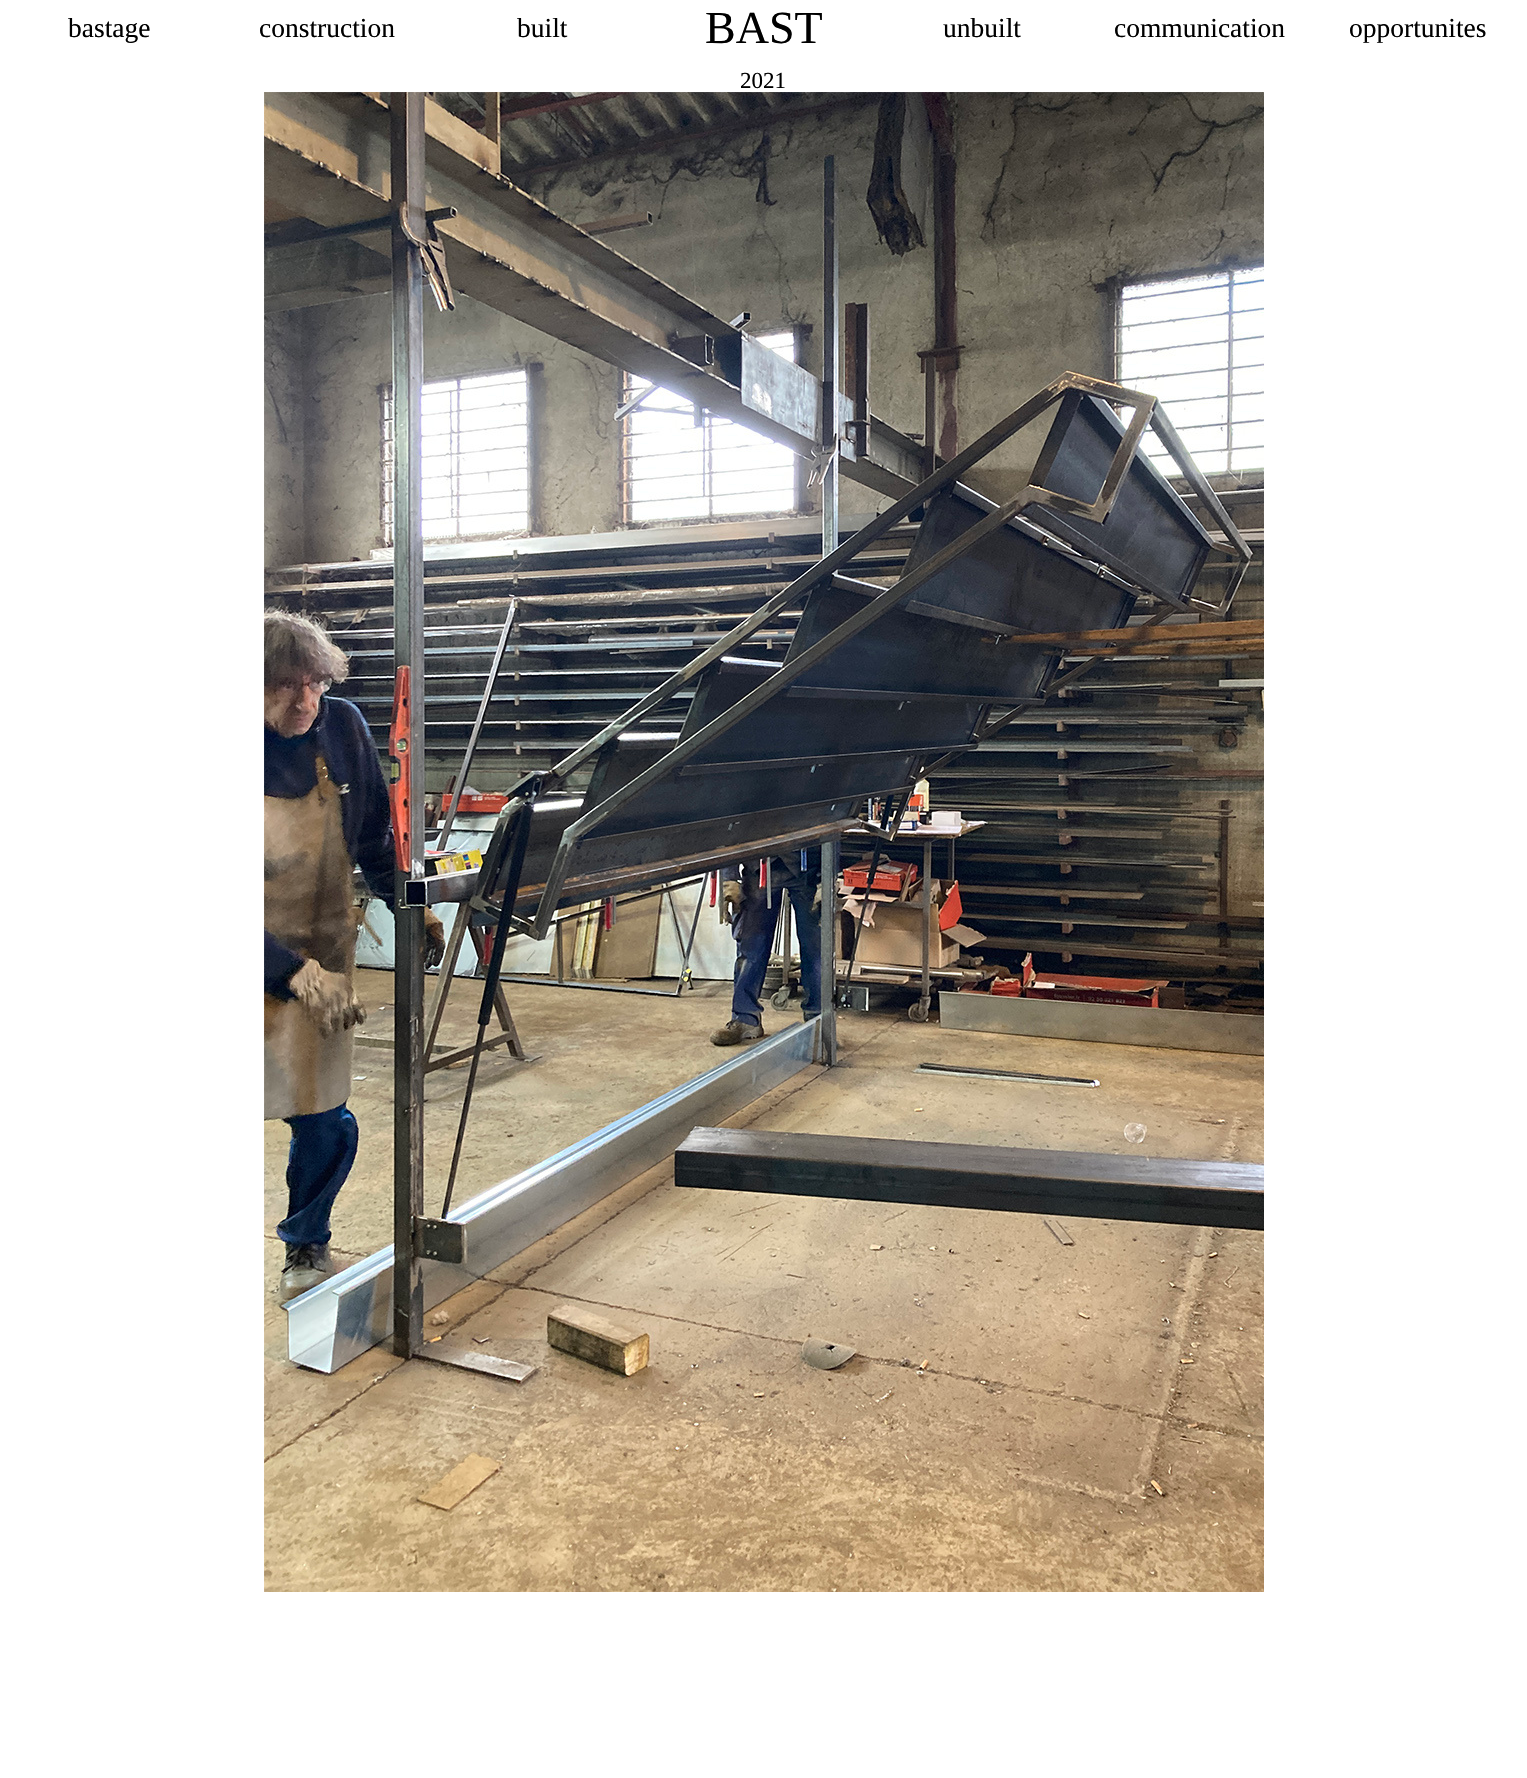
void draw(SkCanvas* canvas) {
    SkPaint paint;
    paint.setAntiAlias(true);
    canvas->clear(0xFFFFFFFF);
    SkFont font1(fontMgr->matchFamilyStyle("Liberation Serif", SkFontStyle::Normal()), 27.5f);
    font1.setSubpixel(true);
    paint.setColor(0xFF000000);
    canvas->drawString("bastage", 68, 37, font1, paint);
    canvas->drawString("construction", 259, 37, font1, paint);
    canvas->drawString("built", 517, 37, font1, paint);
    SkFont font2(fontMgr->matchFamilyStyle("Liberation Serif", SkFontStyle::Normal()), 46);
    font2.setSubpixel(true);
    canvas->drawString("BAST", 705, 43, font2, paint);
    canvas->drawString("unbuilt", 943, 37, font1, paint);
    canvas->drawString("communication", 1114, 37, font1, paint);
    canvas->drawString("opportunites", 1349, 37, font1, paint);
    SkFont font3(fontMgr->matchFamilyStyle("Liberation Serif", SkFontStyle::Normal()), 23);
    font3.setSubpixel(true);
    canvas->drawString("2021", 740, 88, font3, paint);
    canvas->drawImageRect(SkImages::DeferredFromEncodedData(SkData::MakeFromFileName("img1.png")), SkRect::MakeXYWH(264, 92, 1000, 1500), SkSamplingOptions());
}
